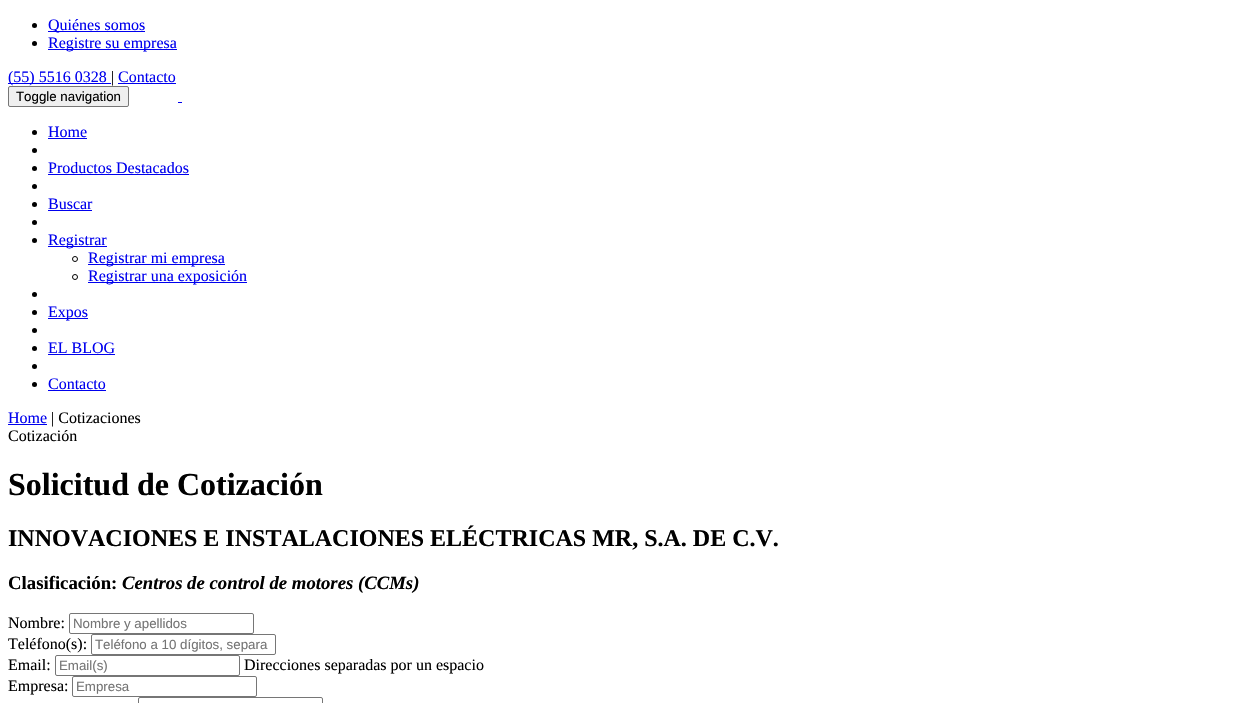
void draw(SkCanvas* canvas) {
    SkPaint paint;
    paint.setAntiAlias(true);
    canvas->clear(0xFFFFFFFF);
    paint.setColor(0xFF000000);
    canvas->drawCircle(34.5f, 25.5f, 2.5f, paint);
    paint.setColor(0xFF0000EE);
    canvas->drawRect(SkRect::MakeXYWH(48, 31, 97, 1), paint);
    SkFont font1(fontMgr->matchFamilyStyle("Liberation Serif", SkFontStyle::Normal()), 16);
    font1.setSubpixel(true);
    canvas->drawString("Quiénes somos", 48, 30, font1, paint);
    paint.setColor(0xFF000000);
    canvas->drawCircle(34.5f, 43.5f, 2.5f, paint);
    paint.setColor(0xFF0000EE);
    canvas->drawRect(SkRect::MakeXYWH(48, 49, 129, 1), paint);
    canvas->drawString("Registre su empresa", 48, 48, font1, paint);
    canvas->drawRect(SkRect::MakeXYWH(8, 83, 103, 1), paint);
    canvas->drawString("(55) 5516 0328", 8, 82, font1, paint);
    paint.setColor(0xFF000000);
    canvas->drawString("|", 111, 82, font1, paint);
    paint.setColor(0xFF0000EE);
    canvas->drawString("Contacto", 118, 82, font1, paint);
    canvas->drawRect(SkRect::MakeXYWH(118, 83, 58, 1), paint);
    paint.setColor(0xFFEFEFEF);
    canvas->drawRoundRect(SkRect::MakeXYWH(8.5f, 86.5f, 120, 20), 1.5f, 1.5f, paint);
    paint.setStyle(SkPaint::kStroke_Style);
    paint.setStrokeWidth(1);
    paint.setColor(0xFF767676);
    canvas->drawRoundRect(SkRect::MakeXYWH(8.5f, 86.5f, 120, 20), 1.5f, 1.5f, paint);
    SkFont font2(fontMgr->matchFamilyStyle("Liberation Sans", SkFontStyle::Normal()), 13.3f);
    font2.setSubpixel(true);
    paint.setStyle(SkPaint::kFill_Style);
    paint.setColor(0xFF000000);
    canvas->drawString("Toggle navigation", 16, 101, font2, paint);
    paint.setColor(0xFF0000EE);
    canvas->drawRect(SkRect::MakeXYWH(178, 102, 4, 1), paint);
    paint.setColor(0xFF000000);
    canvas->drawCircle(34.5f, 132.5f, 2.5f, paint);
    paint.setColor(0xFF0000EE);
    canvas->drawString("Home", 48, 137, font1, paint);
    canvas->drawRect(SkRect::MakeXYWH(48, 138, 39, 1), paint);
    paint.setColor(0xFF000000);
    canvas->drawCircle(34.5f, 150.5f, 2.5f, paint);
    canvas->drawCircle(34.5f, 168.5f, 2.5f, paint);
    paint.setColor(0xFF0000EE);
    canvas->drawString("Productos Destacados", 48, 173, font1, paint);
    canvas->drawRect(SkRect::MakeXYWH(48, 174, 141, 1), paint);
    paint.setColor(0xFF000000);
    canvas->drawCircle(34.5f, 186.5f, 2.5f, paint);
    canvas->drawCircle(34.5f, 204.5f, 2.5f, paint);
    paint.setColor(0xFF0000EE);
    canvas->drawString("Buscar", 48, 209, font1, paint);
    canvas->drawRect(SkRect::MakeXYWH(48, 210, 44, 1), paint);
    paint.setColor(0xFF000000);
    canvas->drawCircle(34.5f, 222.5f, 2.5f, paint);
    canvas->drawCircle(34.5f, 240.5f, 2.5f, paint);
    paint.setColor(0xFF0000EE);
    canvas->drawRect(SkRect::MakeXYWH(48, 246, 59, 1), paint);
    canvas->drawString("Registrar", 48, 245, font1, paint);
    paint.setStyle(SkPaint::kStroke_Style);
    paint.setColor(0xFF000000);
    canvas->drawCircle(75, 259, 2.5f, paint);
    paint.setStyle(SkPaint::kFill_Style);
    paint.setColor(0xFF0000EE);
    canvas->drawRect(SkRect::MakeXYWH(88, 264, 137, 1), paint);
    canvas->drawString("Registrar mi empresa", 88, 263, font1, paint);
    paint.setStyle(SkPaint::kStroke_Style);
    paint.setColor(0xFF000000);
    canvas->drawCircle(75, 277, 2.5f, paint);
    paint.setStyle(SkPaint::kFill_Style);
    paint.setColor(0xFF0000EE);
    canvas->drawRect(SkRect::MakeXYWH(88, 282, 159, 1), paint);
    canvas->drawString("Registrar una exposición", 88, 281, font1, paint);
    paint.setColor(0xFF000000);
    canvas->drawCircle(34.5f, 294.5f, 2.5f, paint);
    canvas->drawCircle(34.5f, 312.5f, 2.5f, paint);
    paint.setColor(0xFF0000EE);
    canvas->drawRect(SkRect::MakeXYWH(48, 318, 40, 1), paint);
    canvas->drawString("Expos", 48, 317, font1, paint);
    paint.setColor(0xFF000000);
    canvas->drawCircle(34.5f, 330.5f, 2.5f, paint);
    canvas->drawCircle(34.5f, 348.5f, 2.5f, paint);
    paint.setColor(0xFF0000EE);
    canvas->drawString("EL BLOG", 48, 353, font1, paint);
    canvas->drawRect(SkRect::MakeXYWH(48, 354, 67, 1), paint);
    paint.setColor(0xFF000000);
    canvas->drawCircle(34.5f, 366.5f, 2.5f, paint);
    canvas->drawCircle(34.5f, 384.5f, 2.5f, paint);
    paint.setColor(0xFF0000EE);
    canvas->drawString("Contacto", 48, 389, font1, paint);
    canvas->drawRect(SkRect::MakeXYWH(48, 390, 58, 1), paint);
    canvas->drawString("Home", 8, 423, font1, paint);
    canvas->drawRect(SkRect::MakeXYWH(8, 424, 39, 1), paint);
    paint.setColor(0xFF000000);
    canvas->drawString("| Cotizaciones", 51, 423, font1, paint);
    canvas->drawString("Cotización", 8, 441, font1, paint);
    SkFont font3(fontMgr->matchFamilyStyle("Liberation Serif", SkFontStyle::Bold()), 32);
    font3.setSubpixel(true);
    canvas->drawString("Solicitud de Cotización", 8, 495, font3, paint);
    SkFont font4(fontMgr->matchFamilyStyle("Liberation Serif", SkFontStyle::Bold()), 24);
    font4.setSubpixel(true);
    canvas->drawString("INNOVACIONES E INSTALACIONES ELÉCTRICAS MR, S.A. DE C.V.", 8, 546, font4, paint);
    SkFont font5(fontMgr->matchFamilyStyle("Liberation Serif", SkFontStyle::Bold()), 18.75f);
    font5.setSubpixel(true);
    canvas->drawString("Clasificación:", 8, 589, font5, paint);
    SkFont font6(fontMgr->matchFamilyStyle("Liberation Serif", SkFontStyle::BoldItalic()), 18.75f);
    font6.setSubpixel(true);
    canvas->drawString("Centros de control de motores (CCMs)", 122, 589, font6, paint);
    canvas->drawString("Nombre:", 8, 628, font1, paint);
    paint.setStyle(SkPaint::kStroke_Style);
    paint.setColor(0xFF767676);
    canvas->drawRoundRect(SkRect::MakeXYWH(69.5f, 613.5f, 184, 20), 1.5f, 1.5f, paint);
    paint.setStyle(SkPaint::kFill_Style);
    paint.setColor(0xFF757575);
    canvas->drawString("Nombre y apellidos", 73, 628, font2, paint);
    paint.setColor(0xFF000000);
    canvas->drawString("Teléfono(s):", 8, 649, font1, paint);
    paint.setStyle(SkPaint::kStroke_Style);
    paint.setColor(0xFF767676);
    canvas->drawRoundRect(SkRect::MakeXYWH(91.5f, 634.5f, 184, 20), 1.5f, 1.5f, paint);
    paint.setStyle(SkPaint::kFill_Style);
    paint.setColor(0xFF757575);
    canvas->drawString("Teléfono a 10 dígitos, separa", 95, 649, font2, paint);
    paint.setColor(0xFF000000);
    canvas->drawString("Email:", 8, 670, font1, paint);
    paint.setStyle(SkPaint::kStroke_Style);
    paint.setColor(0xFF767676);
    canvas->drawRoundRect(SkRect::MakeXYWH(55.5f, 655.5f, 184, 20), 1.5f, 1.5f, paint);
    paint.setStyle(SkPaint::kFill_Style);
    paint.setColor(0xFF757575);
    canvas->drawString("Email(s)", 59, 670, font2, paint);
    paint.setColor(0xFF000000);
    canvas->drawString("Direcciones separadas por un espacio", 244, 670, font1, paint);
    canvas->drawString("Empresa:", 8, 691, font1, paint);
    paint.setStyle(SkPaint::kStroke_Style);
    paint.setColor(0xFF767676);
    canvas->drawRoundRect(SkRect::MakeXYWH(72.5f, 676.5f, 184, 20), 1.5f, 1.5f, paint);
    paint.setStyle(SkPaint::kFill_Style);
    paint.setColor(0xFF757575);
    canvas->drawString("Empresa", 76, 691, font2, paint);
    paint.setStyle(SkPaint::kStroke_Style);
    paint.setColor(0xFF767676);
    canvas->drawRoundRect(SkRect::MakeXYWH(138.5f, 697.5f, 184, 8), 1.5f, 1.5f, paint);
}
